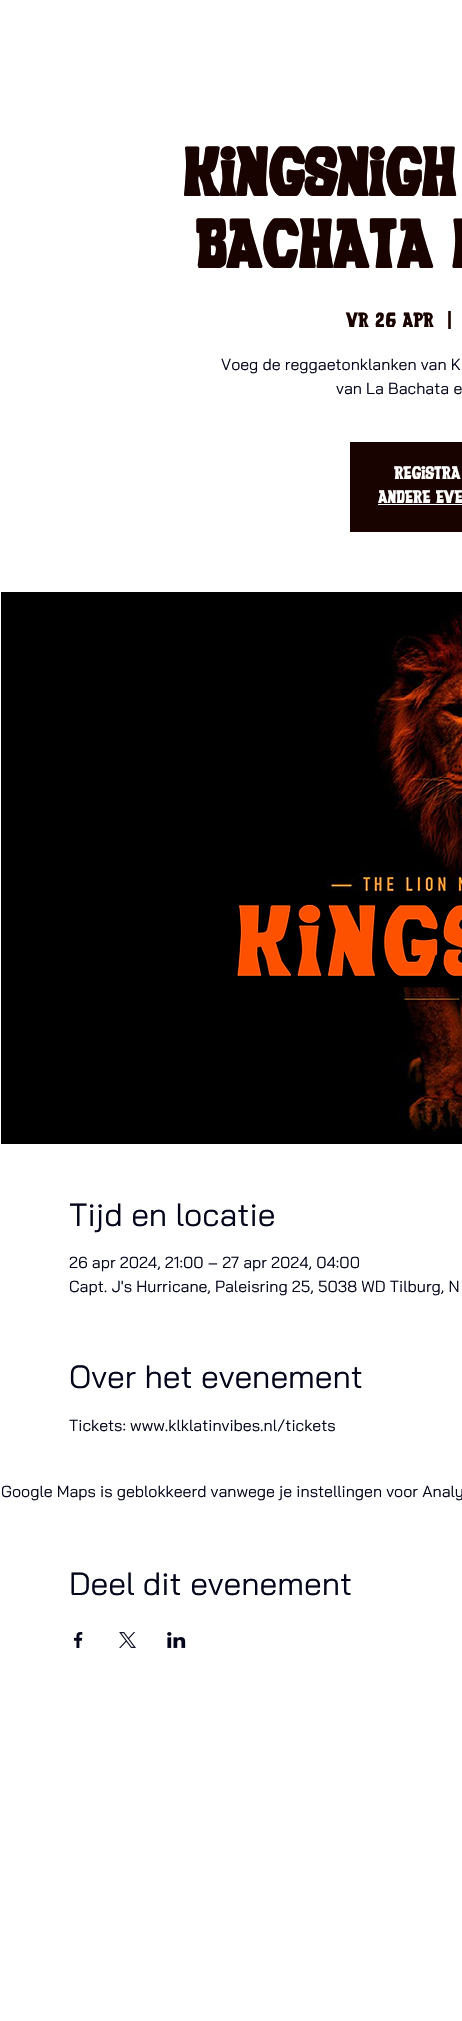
void draw(SkCanvas* canvas) {
    SkPaint paint;
    paint.setAntiAlias(true);
    canvas->clear(0xFFFFFFFF);
    SkFont font1(fontMgr->matchFamilyStyle("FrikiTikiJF", SkFontStyle::Bold()), 60);
    font1.setSubpixel(true);
    paint.setColor(0xFF190300);
    canvas->drawString("Kingsnigh", 183, 196, font1, paint);
    canvas->drawString("Bachata L", 195, 268, font1, paint);
    SkFont font2(fontMgr->matchFamilyStyle("FrikiTikiJF", SkFontStyle::Normal()), 18);
    font2.setSubpixel(true);
    canvas->drawString("vr 26 apr", 346, 327, font2, paint);
    canvas->drawString("|", 445, 327, font2, paint);
    SkFont font3(fontMgr->matchFamilyStyle("Bai Jamjuree", SkFontStyle::Normal()), 16);
    font3.setSubpixel(true);
    paint.setColor(0xFF03051A);
    canvas->drawString("Voeg de reggaetonklanken van K", 221, 370, font3, paint);
    canvas->drawString("van La Bachata e", 336, 394, font3, paint);
    paint.setColor(0xFF190300);
    canvas->drawRect(SkRect::MakeXYWH(350, 442, 112, 90), paint);
    SkFont font4(fontMgr->matchFamilyStyle("FrikiTikiJF", SkFontStyle::Normal()), 16);
    font4.setSubpixel(true);
    paint.setColor(0xFFFFFFFF);
    canvas->drawString("Registra", 394, 479, font4, paint);
    canvas->drawString("Andere eve", 378, 503, font4, paint);
    canvas->drawRect(SkRect::MakeXYWH(378, 504, 84, 1), paint);
    canvas->drawImageRect(SkImages::DeferredFromEncodedData(SkData::MakeFromFileName("img1.png")), SkRect::MakeXYWH(1, 592, 461, 552), SkSamplingOptions());
    SkFont font5(fontMgr->matchFamilyStyle("Bai Jamjuree", SkFontStyle::Normal()), 32);
    font5.setSubpixel(true);
    paint.setColor(0xFF03051A);
    canvas->drawString("Tijd en locatie", 69, 1226, font5, paint);
    canvas->drawString("26 apr 2024, 21:00 – 27 apr 2024, 04:00", 69, 1268, font3, paint);
    canvas->drawString("Capt. J's Hurricane, Paleisring 25, 5038 WD Tilburg, N", 69, 1292, font3, paint);
    canvas->drawString("Over het evenement", 69, 1388, font5, paint);
    canvas->drawString("Tickets: www.klklatinvibes.nl/tickets", 69, 1431, font3, paint);
    canvas->drawString("Google Maps is geblokkeerd vanwege je instellingen voor Analy", 1, 1497, font3, paint);
    canvas->drawString("Deel dit evenement", 69, 1595, font5, paint);
    canvas->drawImageRect(SkImages::DeferredFromEncodedData(SkData::MakeFromFileName("img2.png")), SkRect::MakeXYWH(74, 1632, 9, 16), SkSamplingOptions());
    canvas->drawImageRect(SkImages::DeferredFromEncodedData(SkData::MakeFromFileName("img3.png")), SkRect::MakeXYWH(119, 1632, 17, 16), SkSamplingOptions());
    canvas->drawImageRect(SkImages::DeferredFromEncodedData(SkData::MakeFromFileName("img4.png")), SkRect::MakeXYWH(167, 1632, 19, 16), SkSamplingOptions());
}
